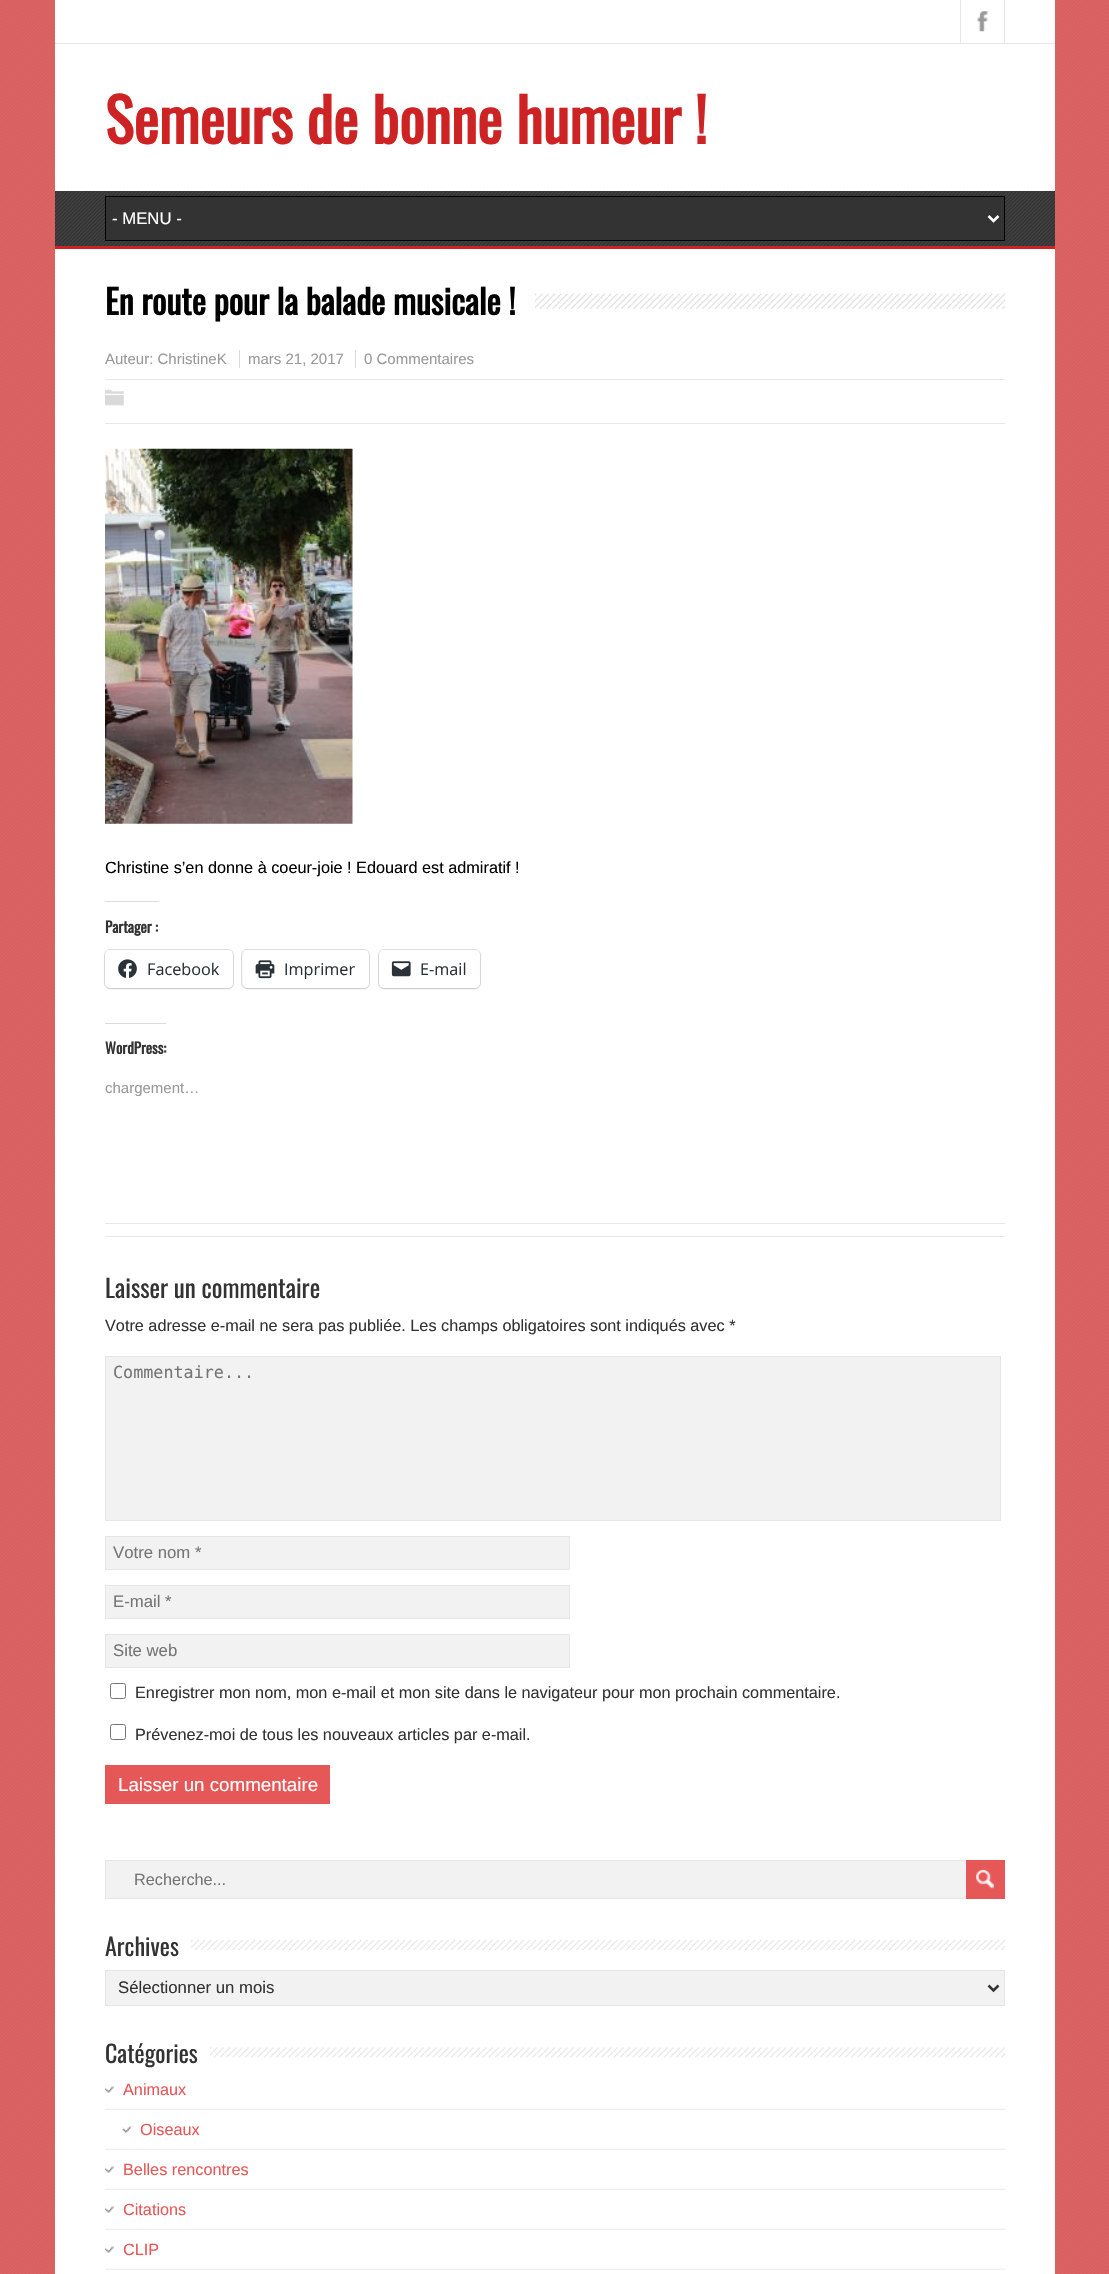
void draw(SkCanvas* canvas) {
    SkPaint paint;
    paint.setAntiAlias(true);
    canvas->clear(0xFFDD6363);
    canvas->drawImageRect(SkImages::DeferredFromEncodedData(SkData::MakeFromFileName("img1.png")), SkRect::MakeXYWH(0, 0, 1109, 2274), SkSamplingOptions());
    paint.setColor(0xFFFFFFFF);
    canvas->drawRect(SkRect::MakeXYWH(55, 0, 1000, 191), paint);
    paint.setColor(0xFFE6E6E6);
    canvas->drawRect(SkRect::MakeXYWH(55, 43, 1000, 1), paint);
    canvas->drawRect(SkRect::MakeXYWH(960, 0, 1, 43), paint);
    canvas->drawImageRect(SkImages::DeferredFromEncodedData(SkData::MakeFromFileName("img2.png")), SkRect::MakeXYWH(977, 11, 11, 21), SkSamplingOptions());
    canvas->drawRect(SkRect::MakeXYWH(1004, 0, 1, 43), paint);
    SkFont font1(fontMgr->matchFamilyStyle("Oswald", SkFontStyle::Bold()), 60);
    font1.setSubpixel(true);
    paint.setColor(0xFFCD2324);
    canvas->drawString("Semeurs de bonne humeur !", 105, 144, font1, paint);
    paint.setColor(0xFF333333);
    canvas->drawRect(SkRect::MakeXYWH(55, 191, 1000, 55), paint);
    paint.setColor(0xFFCD2324);
    canvas->drawRect(SkRect::MakeXYWH(55, 246, 1000, 3), paint);
    canvas->drawImageRect(SkImages::DeferredFromEncodedData(SkData::MakeFromFileName("img3.png")), SkRect::MakeXYWH(55, 191, 1000, 55), SkSamplingOptions());
    paint.setColor(0xFF333333);
    canvas->drawRect(SkRect::MakeXYWH(105.5f, 196.5f, 899, 44), paint);
    paint.setStyle(SkPaint::kStroke_Style);
    paint.setStrokeWidth(1);
    paint.setColor(0xFF000000);
    canvas->drawRect(SkRect::MakeXYWH(105.5f, 196.5f, 899, 44), paint);
    paint.setStrokeWidth(2.5f);
    paint.setColor(0xFFFFFFFF);
    canvas->drawPath(SkPathBuilder().moveTo(988.5f, 216).lineTo(993.5f, 221).lineTo(998.5f, 216).detach(), paint);
    SkFont font2(fontMgr->matchFamilyStyle("Liberation Sans", SkFontStyle::Normal()), 16.75f);
    font2.setSubpixel(true);
    paint.setStyle(SkPaint::kFill_Style);
    canvas->drawString("- MENU -", 112, 224, font2, paint);
    canvas->drawRect(SkRect::MakeXYWH(55, 249, 1000, 2025), paint);
    canvas->drawImageRect(SkImages::DeferredFromEncodedData(SkData::MakeFromFileName("img4.png")), SkRect::MakeXYWH(535, 293, 470, 16), SkSamplingOptions());
    SkFont font3(fontMgr->matchFamilyStyle("Oswald", SkFontStyle::Bold()), 33.75f);
    font3.setSubpixel(true);
    paint.setColor(0xFF000000);
    canvas->drawString("En route pour la balade musicale !", 105, 315, font3, paint);
    SkFont font4(fontMgr->matchFamilyStyle("Liberation Sans", SkFontStyle::Normal()), 15);
    font4.setSubpixel(true);
    paint.setColor(0xFF999999);
    canvas->drawString("Auteur: ChristineK", 105, 364, font4, paint);
    canvas->drawString("mars 21, 2017", 248, 364, font4, paint);
    paint.setColor(0xFFDBDBDB);
    canvas->drawRect(SkRect::MakeXYWH(239, 350, 1, 18), paint);
    paint.setColor(0xFF999999);
    canvas->drawString("0 Commentaires", 364, 364, font4, paint);
    paint.setColor(0xFFDBDBDB);
    canvas->drawRect(SkRect::MakeXYWH(355, 350, 1, 18), paint);
    paint.setColor(0xFFE8E8E8);
    canvas->drawRect(SkRect::MakeXYWH(105, 379, 900, 1), paint);
    canvas->drawRect(SkRect::MakeXYWH(105, 423, 900, 1), paint);
    canvas->drawImageRect(SkImages::DeferredFromEncodedData(SkData::MakeFromFileName("img5.png")), SkRect::MakeXYWH(105, 389, 19, 17), SkSamplingOptions());
    canvas->drawImageRect(SkImages::DeferredFromEncodedData(SkData::MakeFromFileName("img6.png")), SkRect::MakeXYWH(105, 448, 248, 376), SkSamplingOptions());
    SkFont font5(fontMgr->matchFamilyStyle("Liberation Sans", SkFontStyle::Normal()), 16.25f);
    font5.setSubpixel(true);
    paint.setColor(0xFF000000);
    canvas->drawString("Christine s’en donne à coeur-joie ! Edouard est admiratif !", 105, 873, font5, paint);
    paint.setColor(0xFFDCDCDE);
    canvas->drawRect(SkRect::MakeXYWH(105, 901, 54, 1), paint);
    SkFont font6(fontMgr->matchFamilyStyle("Oswald", SkFontStyle::Bold()), 15);
    font6.setSubpixel(true);
    paint.setColor(0xFF333333);
    canvas->drawString("Partager :", 105, 933, font6, paint);
    paint.setStyle(SkPaint::kStroke_Style);
    paint.setStrokeWidth(1);
    paint.setColor(0xFFE0E0E0);
    canvas->drawRoundRect(SkRect::MakeXYWH(104.5f, 949.5f, 129, 39), 5.5f, 5.5f, paint);
    paint.setStyle(SkPaint::kFill_Style);
    paint.setColor(0x1F000000);
    paint.setMaskFilter(SkMaskFilter::MakeBlur(kNormal_SkBlurStyle, 1));
    canvas->drawRoundRect(SkRect::MakeXYWH(105, 951, 128, 38), 5, 5, paint);
    paint.setMaskFilter(nullptr);
    paint.setColor(0xFFFFFFFF);
    canvas->drawRoundRect(SkRect::MakeXYWH(105, 950, 128, 38), 5, 5, paint);
    canvas->drawImageRect(SkImages::DeferredFromEncodedData(SkData::MakeFromFileName("img7.png")), SkRect::MakeXYWH(118, 959, 19, 19), SkSamplingOptions());
    SkFont font7(fontMgr->matchFamilyStyle("Open Sans", SkFontStyle::Normal()), 16.25f);
    font7.setSubpixel(true);
    paint.setColor(0xFF2C3338);
    canvas->drawString("Facebook", 147, 975, font7, paint);
    paint.setStyle(SkPaint::kStroke_Style);
    paint.setColor(0xFFE0E0E0);
    canvas->drawRoundRect(SkRect::MakeXYWH(241.5f, 949.5f, 128, 39), 5.5f, 5.5f, paint);
    paint.setStyle(SkPaint::kFill_Style);
    paint.setColor(0x1F000000);
    paint.setMaskFilter(SkMaskFilter::MakeBlur(kNormal_SkBlurStyle, 1));
    canvas->drawRoundRect(SkRect::MakeXYWH(243, 951, 126, 38), 5, 5, paint);
    paint.setMaskFilter(nullptr);
    paint.setColor(0xFFFFFFFF);
    canvas->drawRoundRect(SkRect::MakeXYWH(243, 950, 126, 38), 5, 5, paint);
    canvas->drawImageRect(SkImages::DeferredFromEncodedData(SkData::MakeFromFileName("img8.png")), SkRect::MakeXYWH(255, 960, 20, 19), SkSamplingOptions());
    paint.setColor(0xFF2C3338);
    canvas->drawString("Imprimer", 284, 975, font7, paint);
    paint.setStyle(SkPaint::kStroke_Style);
    paint.setColor(0xFFE0E0E0);
    canvas->drawRoundRect(SkRect::MakeXYWH(378.5f, 949.5f, 102, 39), 5.5f, 5.5f, paint);
    paint.setStyle(SkPaint::kFill_Style);
    paint.setColor(0x1F000000);
    paint.setMaskFilter(SkMaskFilter::MakeBlur(kNormal_SkBlurStyle, 1));
    canvas->drawRoundRect(SkRect::MakeXYWH(379, 951, 101, 38), 5, 5, paint);
    paint.setMaskFilter(nullptr);
    paint.setColor(0xFFFFFFFF);
    canvas->drawRoundRect(SkRect::MakeXYWH(379, 950, 101, 38), 5, 5, paint);
    canvas->drawImageRect(SkImages::DeferredFromEncodedData(SkData::MakeFromFileName("img9.png")), SkRect::MakeXYWH(391, 961, 20, 16), SkSamplingOptions());
    paint.setColor(0xFF2C3338);
    canvas->drawString("E-mail", 420, 975, font7, paint);
    paint.setColor(0xFFDCDCDE);
    canvas->drawRect(SkRect::MakeXYWH(105, 1023, 61, 1), paint);
    paint.setColor(0xFF333333);
    canvas->drawString("WordPress:", 105, 1054, font6, paint);
    paint.setColor(0xFF999999);
    canvas->drawString("chargement…", 105, 1093, font4, paint);
    paint.setColor(0xFFE8E8E8);
    canvas->drawRect(SkRect::MakeXYWH(105, 1223, 900, 1), paint);
    canvas->drawRect(SkRect::MakeXYWH(105, 1236, 900, 1), paint);
    SkFont font8(fontMgr->matchFamilyStyle("Oswald", SkFontStyle::Normal()), 25);
    font8.setSubpixel(true);
    paint.setColor(0xFF333333);
    canvas->drawString("Laisser un commentaire", 105, 1298, font8, paint);
    canvas->drawString("Votre adresse e-mail ne sera pas publiée. Les champs obligatoires sont indiqués avec *", 105, 1331, font5, paint);
    paint.setColor(0xFFF2F2F2);
    canvas->drawRect(SkRect::MakeXYWH(105.5f, 1356.5f, 895, 164), paint);
    paint.setStyle(SkPaint::kStroke_Style);
    paint.setColor(0xFFE6E6E6);
    canvas->drawRect(SkRect::MakeXYWH(105.5f, 1356.5f, 895, 164), paint);
    SkFont font9(fontMgr->matchFamilyStyle("DejaVu Sans Mono", SkFontStyle::Normal()), 16.75f);
    font9.setSubpixel(true);
    paint.setStyle(SkPaint::kFill_Style);
    paint.setColor(0xFF757575);
    canvas->drawString("Commentaire...", 113, 1378, font9, paint);
    paint.setColor(0xFFF2F2F2);
    canvas->drawRect(SkRect::MakeXYWH(105.5f, 1536.5f, 464, 33), paint);
    paint.setStyle(SkPaint::kStroke_Style);
    paint.setColor(0xFFE6E6E6);
    canvas->drawRect(SkRect::MakeXYWH(105.5f, 1536.5f, 464, 33), paint);
    paint.setStyle(SkPaint::kFill_Style);
    paint.setColor(0xFF757575);
    canvas->drawString("Votre nom *", 113, 1558, font2, paint);
    paint.setColor(0xFFF2F2F2);
    canvas->drawRect(SkRect::MakeXYWH(105.5f, 1585.5f, 464, 33), paint);
    paint.setStyle(SkPaint::kStroke_Style);
    paint.setColor(0xFFE6E6E6);
    canvas->drawRect(SkRect::MakeXYWH(105.5f, 1585.5f, 464, 33), paint);
    paint.setStyle(SkPaint::kFill_Style);
    paint.setColor(0xFF757575);
    canvas->drawString("E-mail *", 113, 1607, font2, paint);
    paint.setColor(0xFFF2F2F2);
    canvas->drawRect(SkRect::MakeXYWH(105.5f, 1634.5f, 464, 33), paint);
    paint.setStyle(SkPaint::kStroke_Style);
    paint.setColor(0xFFE6E6E6);
    canvas->drawRect(SkRect::MakeXYWH(105.5f, 1634.5f, 464, 33), paint);
    paint.setStyle(SkPaint::kFill_Style);
    paint.setColor(0xFF757575);
    canvas->drawString("Site web", 113, 1656, font2, paint);
    paint.setStyle(SkPaint::kStroke_Style);
    paint.setColor(0xFF767676);
    canvas->drawRoundRect(SkRect::MakeXYWH(110.5f, 1683.5f, 15, 15), 2, 2, paint);
    paint.setStyle(SkPaint::kFill_Style);
    paint.setColor(0xFF333333);
    canvas->drawString("Enregistrer mon nom, mon e-mail et mon site dans le navigateur pour mon prochain commentaire.", 135, 1698, font5, paint);
    paint.setStyle(SkPaint::kStroke_Style);
    paint.setColor(0xFF767676);
    canvas->drawRoundRect(SkRect::MakeXYWH(110.5f, 1724.5f, 15, 15), 2, 2, paint);
    paint.setStyle(SkPaint::kFill_Style);
    paint.setColor(0xFF333333);
    canvas->drawString("Prévenez-moi de tous les nouveaux articles par e-mail.", 135, 1740, font5, paint);
    paint.setColor(0xFFE65757);
    canvas->drawRect(SkRect::MakeXYWH(105, 1765, 225, 39), paint);
    SkFont font10(fontMgr->matchFamilyStyle("Liberation Sans", SkFontStyle::Normal()), 18.75f);
    font10.setSubpixel(true);
    paint.setColor(0xFFFFFFFF);
    canvas->drawString("Laisser un commentaire", 118, 1791, font10, paint);
    paint.setColor(0xFFF2F2F2);
    canvas->drawRect(SkRect::MakeXYWH(106, 1861, 860, 37), paint);
    paint.setStyle(SkPaint::kStroke_Style);
    paint.setColor(0xFFE6E6E6);
    canvas->drawRect(SkRect::MakeXYWH(105.5f, 1860.5f, 892, 38), paint);
    paint.setStyle(SkPaint::kFill_Style);
    paint.setColor(0xFF757575);
    canvas->drawString("Recherche...", 134, 1885, font5, paint);
    paint.setColor(0xFFE65757);
    canvas->drawRect(SkRect::MakeXYWH(966, 1860, 39, 39), paint);
    canvas->drawImageRect(SkImages::DeferredFromEncodedData(SkData::MakeFromFileName("img10.png")), SkRect::MakeXYWH(976, 1869, 19, 20), SkSamplingOptions());
    canvas->drawImageRect(SkImages::DeferredFromEncodedData(SkData::MakeFromFileName("img11.png")), SkRect::MakeXYWH(191, 1940, 814, 10), SkSamplingOptions());
    SkFont font11(fontMgr->matchFamilyStyle("Oswald", SkFontStyle::Normal()), 24);
    font11.setSubpixel(true);
    paint.setColor(0xFF333333);
    canvas->drawString("Archives", 105, 1956, font11, paint);
    paint.setColor(0xFFF2F2F2);
    canvas->drawRect(SkRect::MakeXYWH(105.5f, 1970.5f, 899, 35), paint);
    paint.setStyle(SkPaint::kStroke_Style);
    paint.setColor(0xFFE6E6E6);
    canvas->drawRect(SkRect::MakeXYWH(105.5f, 1970.5f, 899, 35), paint);
    paint.setStrokeWidth(2.5f);
    paint.setColor(0xFF333333);
    canvas->drawPath(SkPathBuilder().moveTo(988.5f, 1985.5f).lineTo(993.5f, 1990.5f).lineTo(998.5f, 1985.5f).detach(), paint);
    paint.setStyle(SkPaint::kFill_Style);
    canvas->drawString("Sélectionner un mois", 118, 1993, font2, paint);
    canvas->drawImageRect(SkImages::DeferredFromEncodedData(SkData::MakeFromFileName("img12.png")), SkRect::MakeXYWH(210, 2047, 795, 11), SkSamplingOptions());
    canvas->drawString("Catégories", 105, 2063, font11, paint);
    canvas->drawImageRect(SkImages::DeferredFromEncodedData(SkData::MakeFromFileName("img13.png")), SkRect::MakeXYWH(105, 2108, 900, 162), SkSamplingOptions());
    canvas->drawImageRect(SkImages::DeferredFromEncodedData(SkData::MakeFromFileName("img14.png")), SkRect::MakeXYWH(105, 2086, 9, 7), SkSamplingOptions());
    paint.setColor(0xFFE65757);
    canvas->drawString("Animaux", 123, 2095, font5, paint);
    canvas->drawImageRect(SkImages::DeferredFromEncodedData(SkData::MakeFromFileName("img15.png")), SkRect::MakeXYWH(122, 2126, 10, 7), SkSamplingOptions());
    canvas->drawString("Oiseaux", 140, 2135, font5, paint);
    canvas->drawImageRect(SkImages::DeferredFromEncodedData(SkData::MakeFromFileName("img14.png")), SkRect::MakeXYWH(105, 2166, 9, 7), SkSamplingOptions());
    canvas->drawString("Belles rencontres", 123, 2175, font5, paint);
    canvas->drawImageRect(SkImages::DeferredFromEncodedData(SkData::MakeFromFileName("img14.png")), SkRect::MakeXYWH(105, 2206, 9, 7), SkSamplingOptions());
    canvas->drawString("Citations", 123, 2215, font5, paint);
    canvas->drawImageRect(SkImages::DeferredFromEncodedData(SkData::MakeFromFileName("img14.png")), SkRect::MakeXYWH(105, 2246, 9, 7), SkSamplingOptions());
    canvas->drawString("CLIP", 123, 2255, font5, paint);
}
